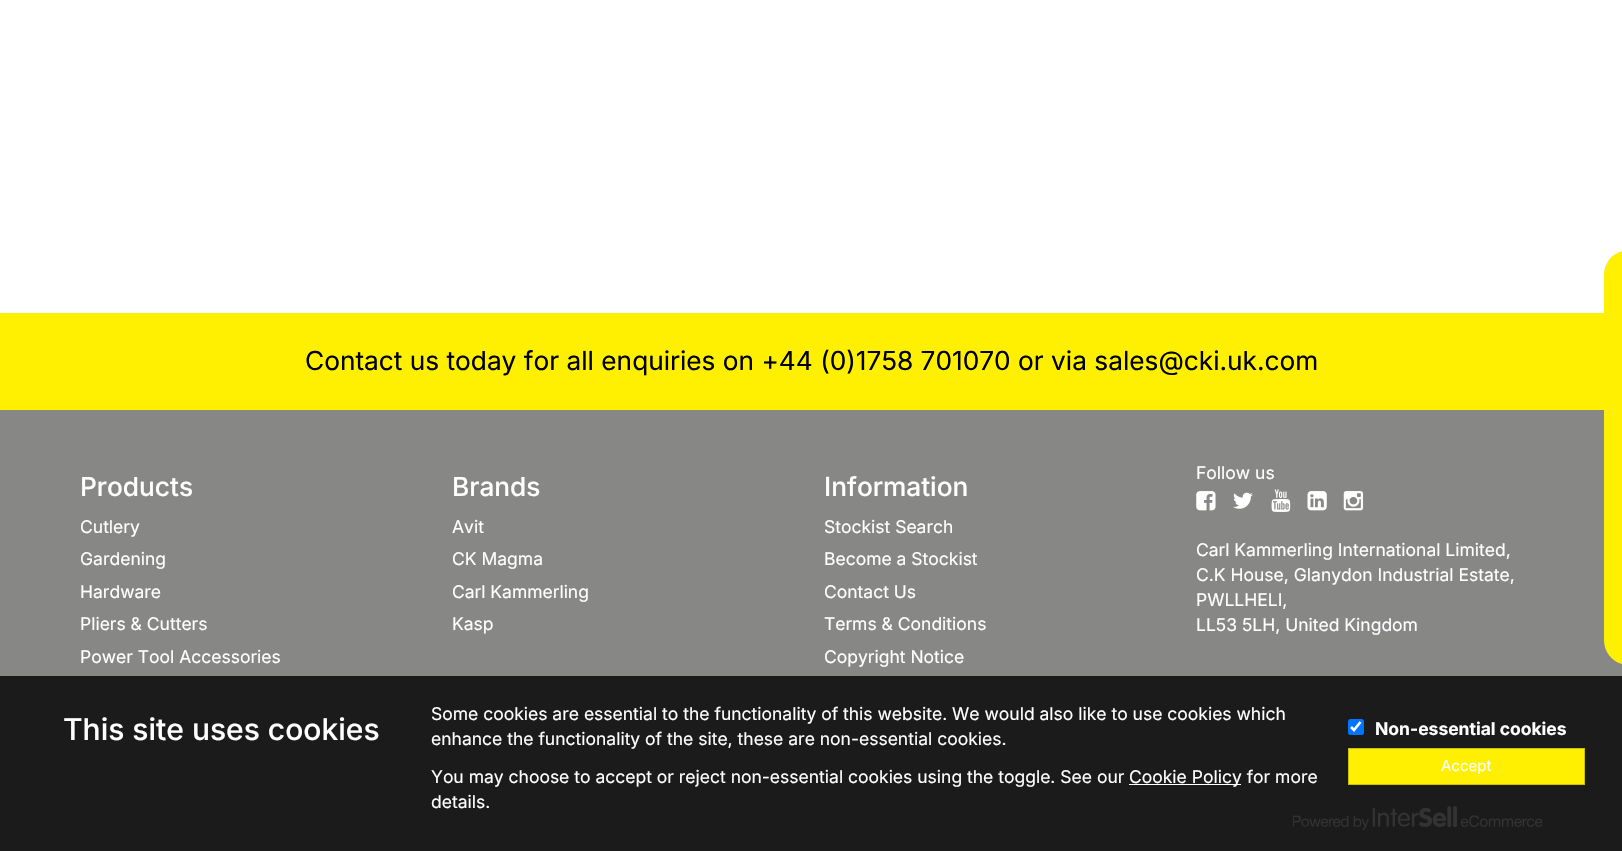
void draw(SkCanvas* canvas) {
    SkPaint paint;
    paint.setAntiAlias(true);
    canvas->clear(0xFFFFFFFF);
    paint.setColor(0xFFFEF000);
    canvas->drawRect(SkRect::MakeXYWH(0, 313, 1604, 97), paint);
    SkFont font1(fontMgr->matchFamilyStyle("Inter", SkFontStyle::Normal()), 26.25f);
    font1.setSubpixel(true);
    paint.setColor(0xFF000000);
    canvas->drawString("Contact us today for all enquiries on +44 (0)1758 701070 or via sales@cki.uk.com", 305, 370, font1, paint);
    paint.setColor(0xFF878786);
    canvas->drawRect(SkRect::MakeXYWH(0, 410, 1622, 441), paint);
    paint.setColor(0xFFFEF000);
    canvas->drawPath(SkPathBuilder().moveTo(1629, 250).lineTo(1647, 250).lineTo(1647, 665).lineTo(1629, 665).cubicTo(1615, 665, 1604, 654, 1604, 640).lineTo(1604, 275).cubicTo(1604, 261, 1615, 250, 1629, 250).close().detach(), paint);
    SkFont font2(fontMgr->matchFamilyStyle("Inter", SkFontStyle(500, SkFontStyle::kNormal_Width, SkFontStyle::kUpright_Slant)), 26.25f);
    font2.setSubpixel(true);
    paint.setColor(0xFFFFFFFF);
    canvas->drawString("Products", 80, 496, font2, paint);
    SkFont font3(fontMgr->matchFamilyStyle("Inter", SkFontStyle::Normal()), 17.5f);
    font3.setSubpixel(true);
    canvas->drawString("Cutlery", 80, 533, font3, paint);
    canvas->drawString("Gardening", 80, 565, font3, paint);
    canvas->drawString("Hardware", 80, 598, font3, paint);
    canvas->drawString("Pliers & Cutters", 80, 630, font3, paint);
    canvas->drawString("Power Tool Accessories", 80, 663, font3, paint);
    canvas->drawString("Brands", 452, 496, font2, paint);
    canvas->drawString("Avit", 452, 533, font3, paint);
    canvas->drawString("CK Magma", 452, 565, font3, paint);
    canvas->drawString("Carl Kammerling", 452, 598, font3, paint);
    canvas->drawString("Kasp", 452, 630, font3, paint);
    canvas->drawString("Information", 824, 496, font2, paint);
    canvas->drawString("Stockist Search", 824, 533, font3, paint);
    canvas->drawString("Become a Stockist", 824, 565, font3, paint);
    canvas->drawString("Contact Us", 824, 598, font3, paint);
    canvas->drawString("Terms & Conditions", 824, 630, font3, paint);
    canvas->drawString("Copyright Notice", 824, 663, font3, paint);
    canvas->drawString("Follow us", 1196, 479, font3, paint);
    canvas->drawImageRect(SkImages::DeferredFromEncodedData(SkData::MakeFromFileName("img1.png")), SkRect::MakeXYWH(1196, 491, 20, 20), SkSamplingOptions());
    canvas->drawImageRect(SkImages::DeferredFromEncodedData(SkData::MakeFromFileName("img2.png")), SkRect::MakeXYWH(1233, 492, 20, 17), SkSamplingOptions());
    canvas->drawImageRect(SkImages::DeferredFromEncodedData(SkData::MakeFromFileName("img3.png")), SkRect::MakeXYWH(1271, 489, 20, 23), SkSamplingOptions());
    canvas->drawImageRect(SkImages::DeferredFromEncodedData(SkData::MakeFromFileName("img4.png")), SkRect::MakeXYWH(1307, 491, 20, 20), SkSamplingOptions());
    canvas->drawImageRect(SkImages::DeferredFromEncodedData(SkData::MakeFromFileName("img5.png")), SkRect::MakeXYWH(1343, 491, 21, 20), SkSamplingOptions());
    canvas->drawString("Carl Kammerling International Limited,", 1196, 556, font3, paint);
    canvas->drawString("C.K House, Glanydon Industrial Estate,", 1196, 581, font3, paint);
    canvas->drawString("PWLLHELI,", 1196, 606, font3, paint);
    canvas->drawString("LL53 5LH, United Kingdom", 1196, 631, font3, paint);
    canvas->drawImageRect(SkImages::DeferredFromEncodedData(SkData::MakeFromFileName("img6.png")), SkRect::MakeXYWH(1293, 806, 250, 24), SkSamplingOptions());
    paint.setColor(0xCC000000);
    canvas->drawRect(SkRect::MakeXYWH(0, 676, 1622, 175), paint);
    SkFont font4(fontMgr->matchFamilyStyle("Inter", SkFontStyle(500, SkFontStyle::kNormal_Width, SkFontStyle::kUpright_Slant)), 30);
    font4.setSubpixel(true);
    paint.setColor(0xFFFFFFFF);
    canvas->drawString("This site uses cookies", 63, 740, font4, paint);
    canvas->drawString("Some cookies are essential to the functionality of this website. We would also like to use cookies which", 431, 720, font3, paint);
    canvas->drawString("enhance the functionality of the site, these are non-essential cookies.", 431, 745, font3, paint);
    canvas->drawString("You may choose to accept or reject non-essential cookies using the toggle. See our", 431, 783, font3, paint);
    canvas->drawRect(SkRect::MakeXYWH(1129, 784, 112, 1), paint);
    canvas->drawString("Cookie Policy for more", 1129, 783, font3, paint);
    canvas->drawString("details.", 431, 808, font3, paint);
    paint.setColor(0xFF0075FF);
    canvas->drawRoundRect(SkRect::MakeXYWH(1348, 719, 16, 16), 2.5f, 2.5f, paint);
    paint.setStyle(SkPaint::kStroke_Style);
    paint.setStrokeWidth(2.6f);
    paint.setColor(0xFFFFFFFF);
    canvas->drawPath(SkPathBuilder().moveTo(1351, 727).lineTo(1354, 730).lineTo(1360.5f, 722).detach(), paint);
    SkFont font5(fontMgr->matchFamilyStyle("Inter", SkFontStyle::Bold()), 17.5f);
    font5.setSubpixel(true);
    paint.setStyle(SkPaint::kFill_Style);
    canvas->drawString("Non-essential cookies", 1375, 735, font5, paint);
    paint.setColor(0xFFFEF000);
    canvas->drawRect(SkRect::MakeXYWH(1348.5f, 748.5f, 236, 36), paint);
    paint.setStyle(SkPaint::kStroke_Style);
    paint.setStrokeWidth(1);
    paint.setColor(0xFFCBC000);
    canvas->drawRect(SkRect::MakeXYWH(1348.5f, 748.5f, 236, 36), paint);
    SkFont font6(fontMgr->matchFamilyStyle("Inter", SkFontStyle::Normal()), 15);
    font6.setSubpixel(true);
    paint.setStyle(SkPaint::kFill_Style);
    paint.setColor(0xFFFFFFFF);
    canvas->drawString("Accept", 1441, 771, font6, paint);
}
